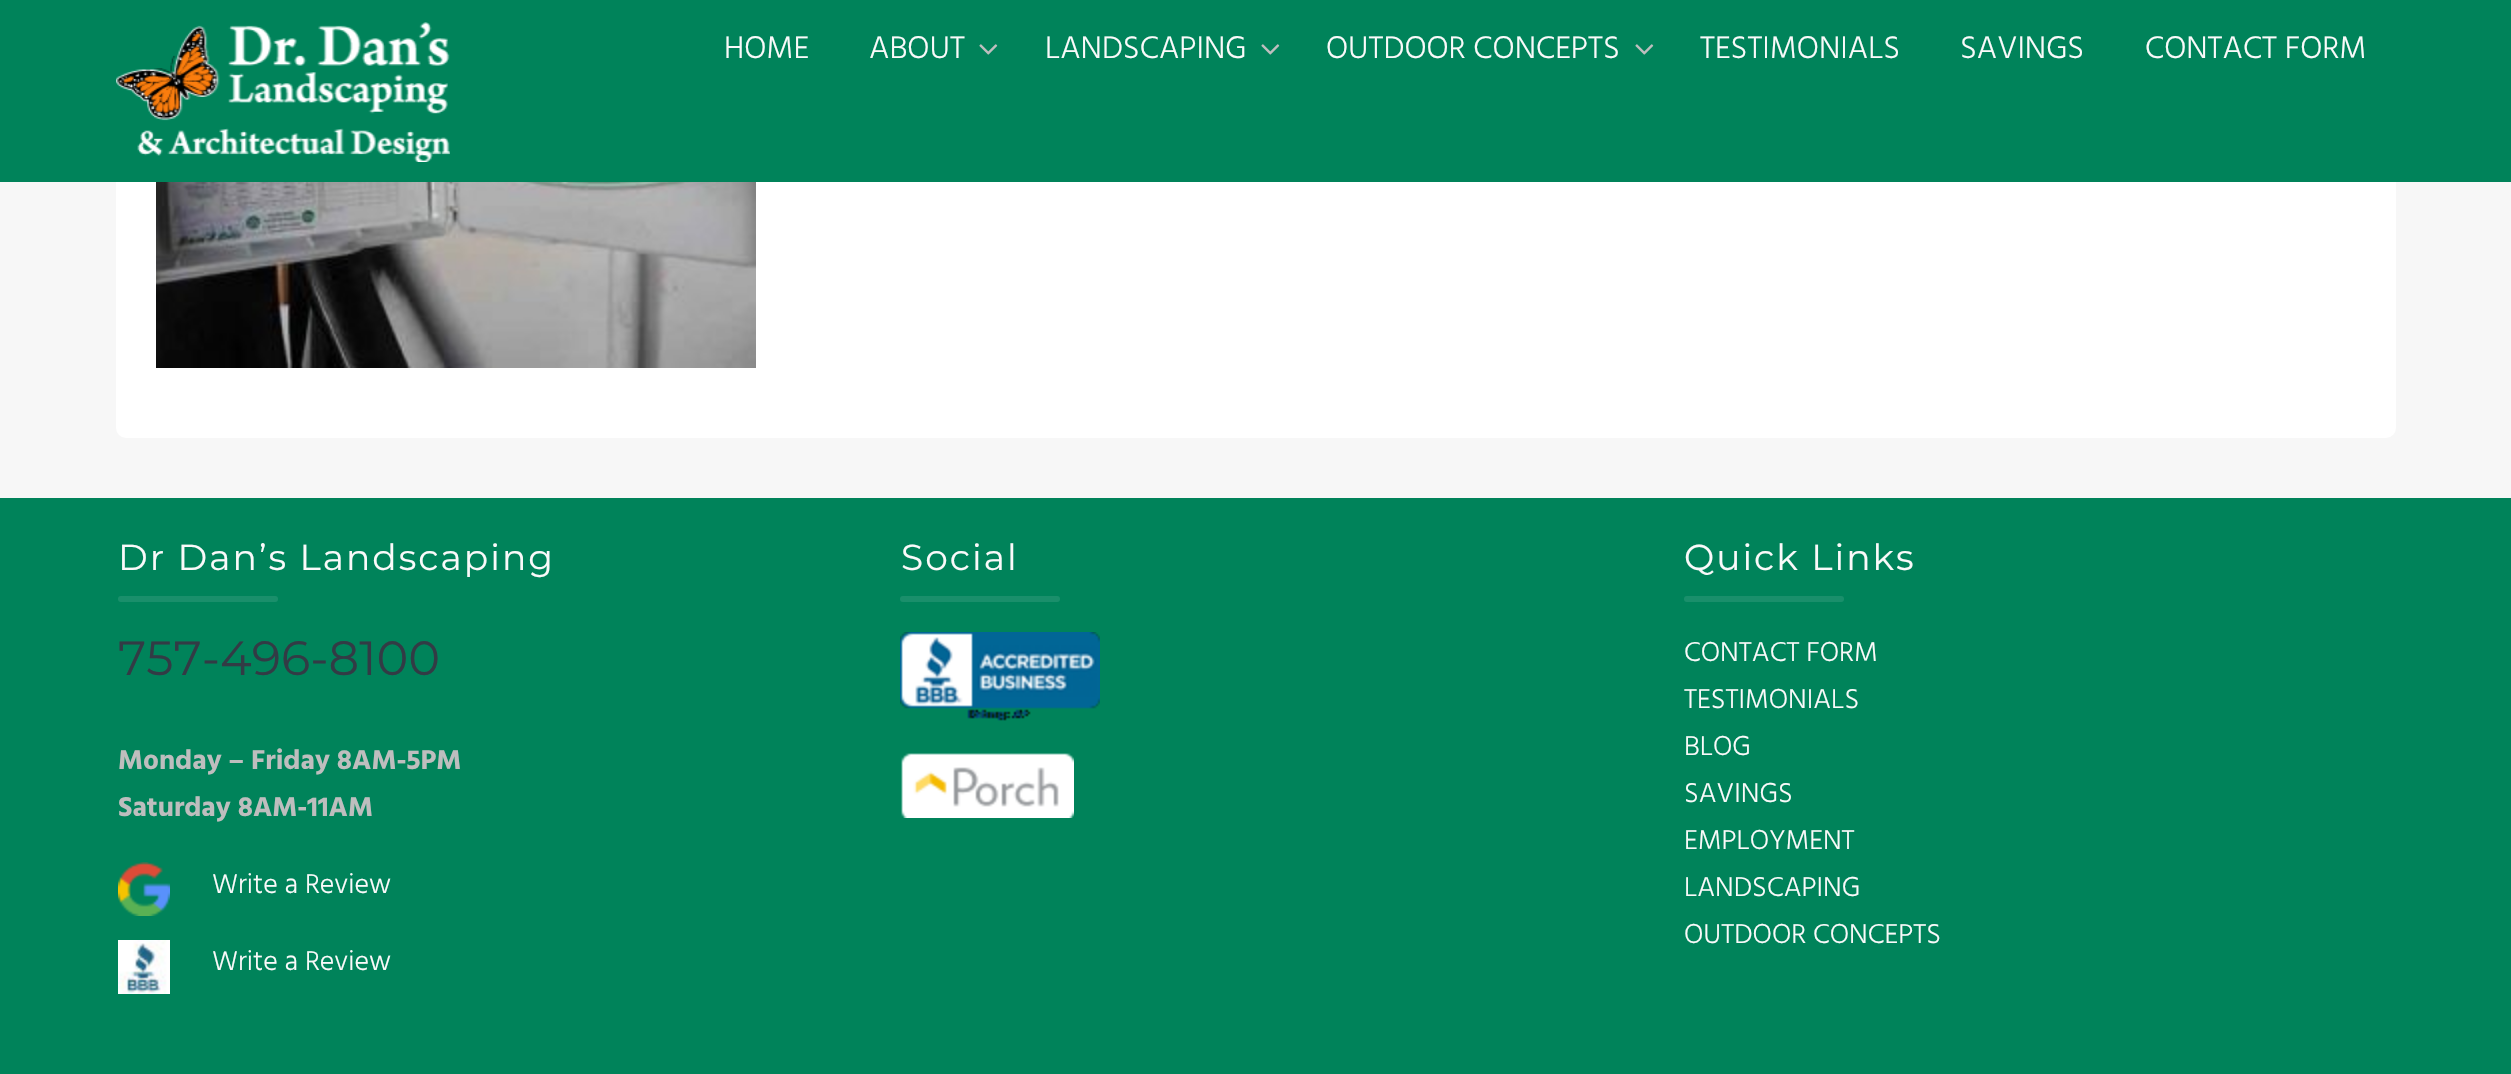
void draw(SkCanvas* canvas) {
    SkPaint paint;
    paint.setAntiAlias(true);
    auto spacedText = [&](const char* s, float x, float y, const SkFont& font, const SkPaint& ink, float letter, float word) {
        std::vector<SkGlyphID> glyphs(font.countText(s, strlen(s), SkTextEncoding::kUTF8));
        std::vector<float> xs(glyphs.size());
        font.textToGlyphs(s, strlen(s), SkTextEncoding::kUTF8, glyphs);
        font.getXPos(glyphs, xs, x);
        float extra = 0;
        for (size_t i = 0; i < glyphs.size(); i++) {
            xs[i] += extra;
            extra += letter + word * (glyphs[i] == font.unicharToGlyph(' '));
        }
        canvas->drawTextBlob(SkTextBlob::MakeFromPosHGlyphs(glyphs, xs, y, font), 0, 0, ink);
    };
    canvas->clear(0xFFF7F7F7);
    paint.setColor(0xFFFFFFFF);
    canvas->drawRoundRect(SkRect::MakeXYWH(116, -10, 2280, 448), 10, 10, paint);
    canvas->drawImageRect(SkImages::DeferredFromEncodedData(SkData::MakeFromFileName("img1.png")), SkRect::MakeXYWH(156, 182, 600, 186), SkSamplingOptions());
    paint.setColor(0xFF00835A);
    canvas->drawRect(SkRect::MakeXYWH(0, 0, 2511, 182), paint);
    canvas->drawImageRect(SkImages::DeferredFromEncodedData(SkData::MakeFromFileName("img2.png")), SkRect::MakeXYWH(116, 22, 334, 140), SkSamplingOptions());
    SkFont font1(fontMgr->matchFamilyStyle("Hind", SkFontStyle(300, SkFontStyle::kNormal_Width, SkFontStyle::kUpright_Slant)), 32);
    font1.setSubpixel(true);
    paint.setColor(0xFFFAFAFA);
    canvas->drawString("HOME", 724, 58, font1, paint);
    canvas->drawString("ABOUT", 869, 58, font1, paint);
    canvas->drawImageRect(SkImages::DeferredFromEncodedData(SkData::MakeFromFileName("img3.png")), SkRect::MakeXYWH(979, 44, 19, 11), SkSamplingOptions());
    canvas->drawString("LANDSCAPING", 1045, 58, font1, paint);
    canvas->drawImageRect(SkImages::DeferredFromEncodedData(SkData::MakeFromFileName("img3.png")), SkRect::MakeXYWH(1261, 44, 19, 11), SkSamplingOptions());
    canvas->drawString("OUTDOOR CONCEPTS", 1326, 58, font1, paint);
    canvas->drawImageRect(SkImages::DeferredFromEncodedData(SkData::MakeFromFileName("img3.png")), SkRect::MakeXYWH(1635, 44, 19, 11), SkSamplingOptions());
    canvas->drawString("TESTIMONIALS", 1700, 58, font1, paint);
    canvas->drawString("SAVINGS", 1960, 58, font1, paint);
    canvas->drawString("CONTACT FORM", 2145, 58, font1, paint);
    paint.setColor(0xFF00835A);
    canvas->drawRect(SkRect::MakeXYWH(0, 498, 2511, 576), paint);
    SkFont font2(fontMgr->matchFamilyStyle("Montserrat", SkFontStyle::Normal()), 36);
    font2.setSubpixel(true);
    paint.setColor(0xFFFAFAFA);
    spacedText("Dr Dan’s Landscaping", 118, 570, font2, paint, 2, 0);
    paint.setColor(0xFF1A8F6B);
    canvas->drawRoundRect(SkRect::MakeXYWH(118, 596, 160, 6), 3, 3, paint);
    SkFont font3(fontMgr->matchFamilyStyle("Montserrat", SkFontStyle::Normal()), 48);
    font3.setSubpixel(true);
    paint.setColor(0xFF323B45);
    canvas->drawString("757-496-8100", 118, 675, font3, paint);
    SkFont font4(fontMgr->matchFamilyStyle("Hind", SkFontStyle::Bold()), 28);
    font4.setSubpixel(true);
    paint.setColor(0xFFBEBEBE);
    canvas->drawString("Monday – Friday 8AM-5PM", 118, 769, font4, paint);
    canvas->drawString("Saturday 8AM-11AM", 118, 816, font4, paint);
    canvas->drawImageRect(SkImages::DeferredFromEncodedData(SkData::MakeFromFileName("img4.png")), SkRect::MakeXYWH(118, 862, 52, 54), SkSamplingOptions());
    SkFont font5(fontMgr->matchFamilyStyle("Hind", SkFontStyle(300, SkFontStyle::kNormal_Width, SkFontStyle::kUpright_Slant)), 28);
    font5.setSubpixel(true);
    paint.setColor(0xFFFAFAFA);
    canvas->drawString("Write a Review", 212, 893, font5, paint);
    canvas->drawImageRect(SkImages::DeferredFromEncodedData(SkData::MakeFromFileName("img5.png")), SkRect::MakeXYWH(118, 940, 52, 54), SkSamplingOptions());
    canvas->drawString("Write a Review", 212, 970, font5, paint);
    spacedText("Social", 901, 570, font2, paint, 2, 0);
    paint.setColor(0xFF1A8F6B);
    canvas->drawRoundRect(SkRect::MakeXYWH(900, 596, 160, 6), 3, 3, paint);
    canvas->drawImageRect(SkImages::DeferredFromEncodedData(SkData::MakeFromFileName("img6.png")), SkRect::MakeXYWH(900, 632, 200, 89), SkSamplingOptions());
    canvas->drawImageRect(SkImages::DeferredFromEncodedData(SkData::MakeFromFileName("img7.png")), SkRect::MakeXYWH(901, 753, 173, 65), SkSamplingOptions());
    paint.setColor(0xFFFAFAFA);
    spacedText("Quick Links", 1684, 570, font2, paint, 2, 0);
    paint.setColor(0xFF1A8F6B);
    canvas->drawRoundRect(SkRect::MakeXYWH(1684, 596, 160, 6), 3, 3, paint);
    paint.setColor(0xFFFAFAFA);
    canvas->drawString("CONTACT FORM", 1684, 661, font5, paint);
    canvas->drawString("TESTIMONIALS", 1684, 708, font5, paint);
    canvas->drawString("BLOG", 1684, 755, font5, paint);
    canvas->drawString("SAVINGS", 1684, 802, font5, paint);
    canvas->drawString("EMPLOYMENT", 1684, 849, font5, paint);
    canvas->drawString("LANDSCAPING", 1684, 896, font5, paint);
    canvas->drawString("OUTDOOR CONCEPTS", 1684, 943, font5, paint);
}
